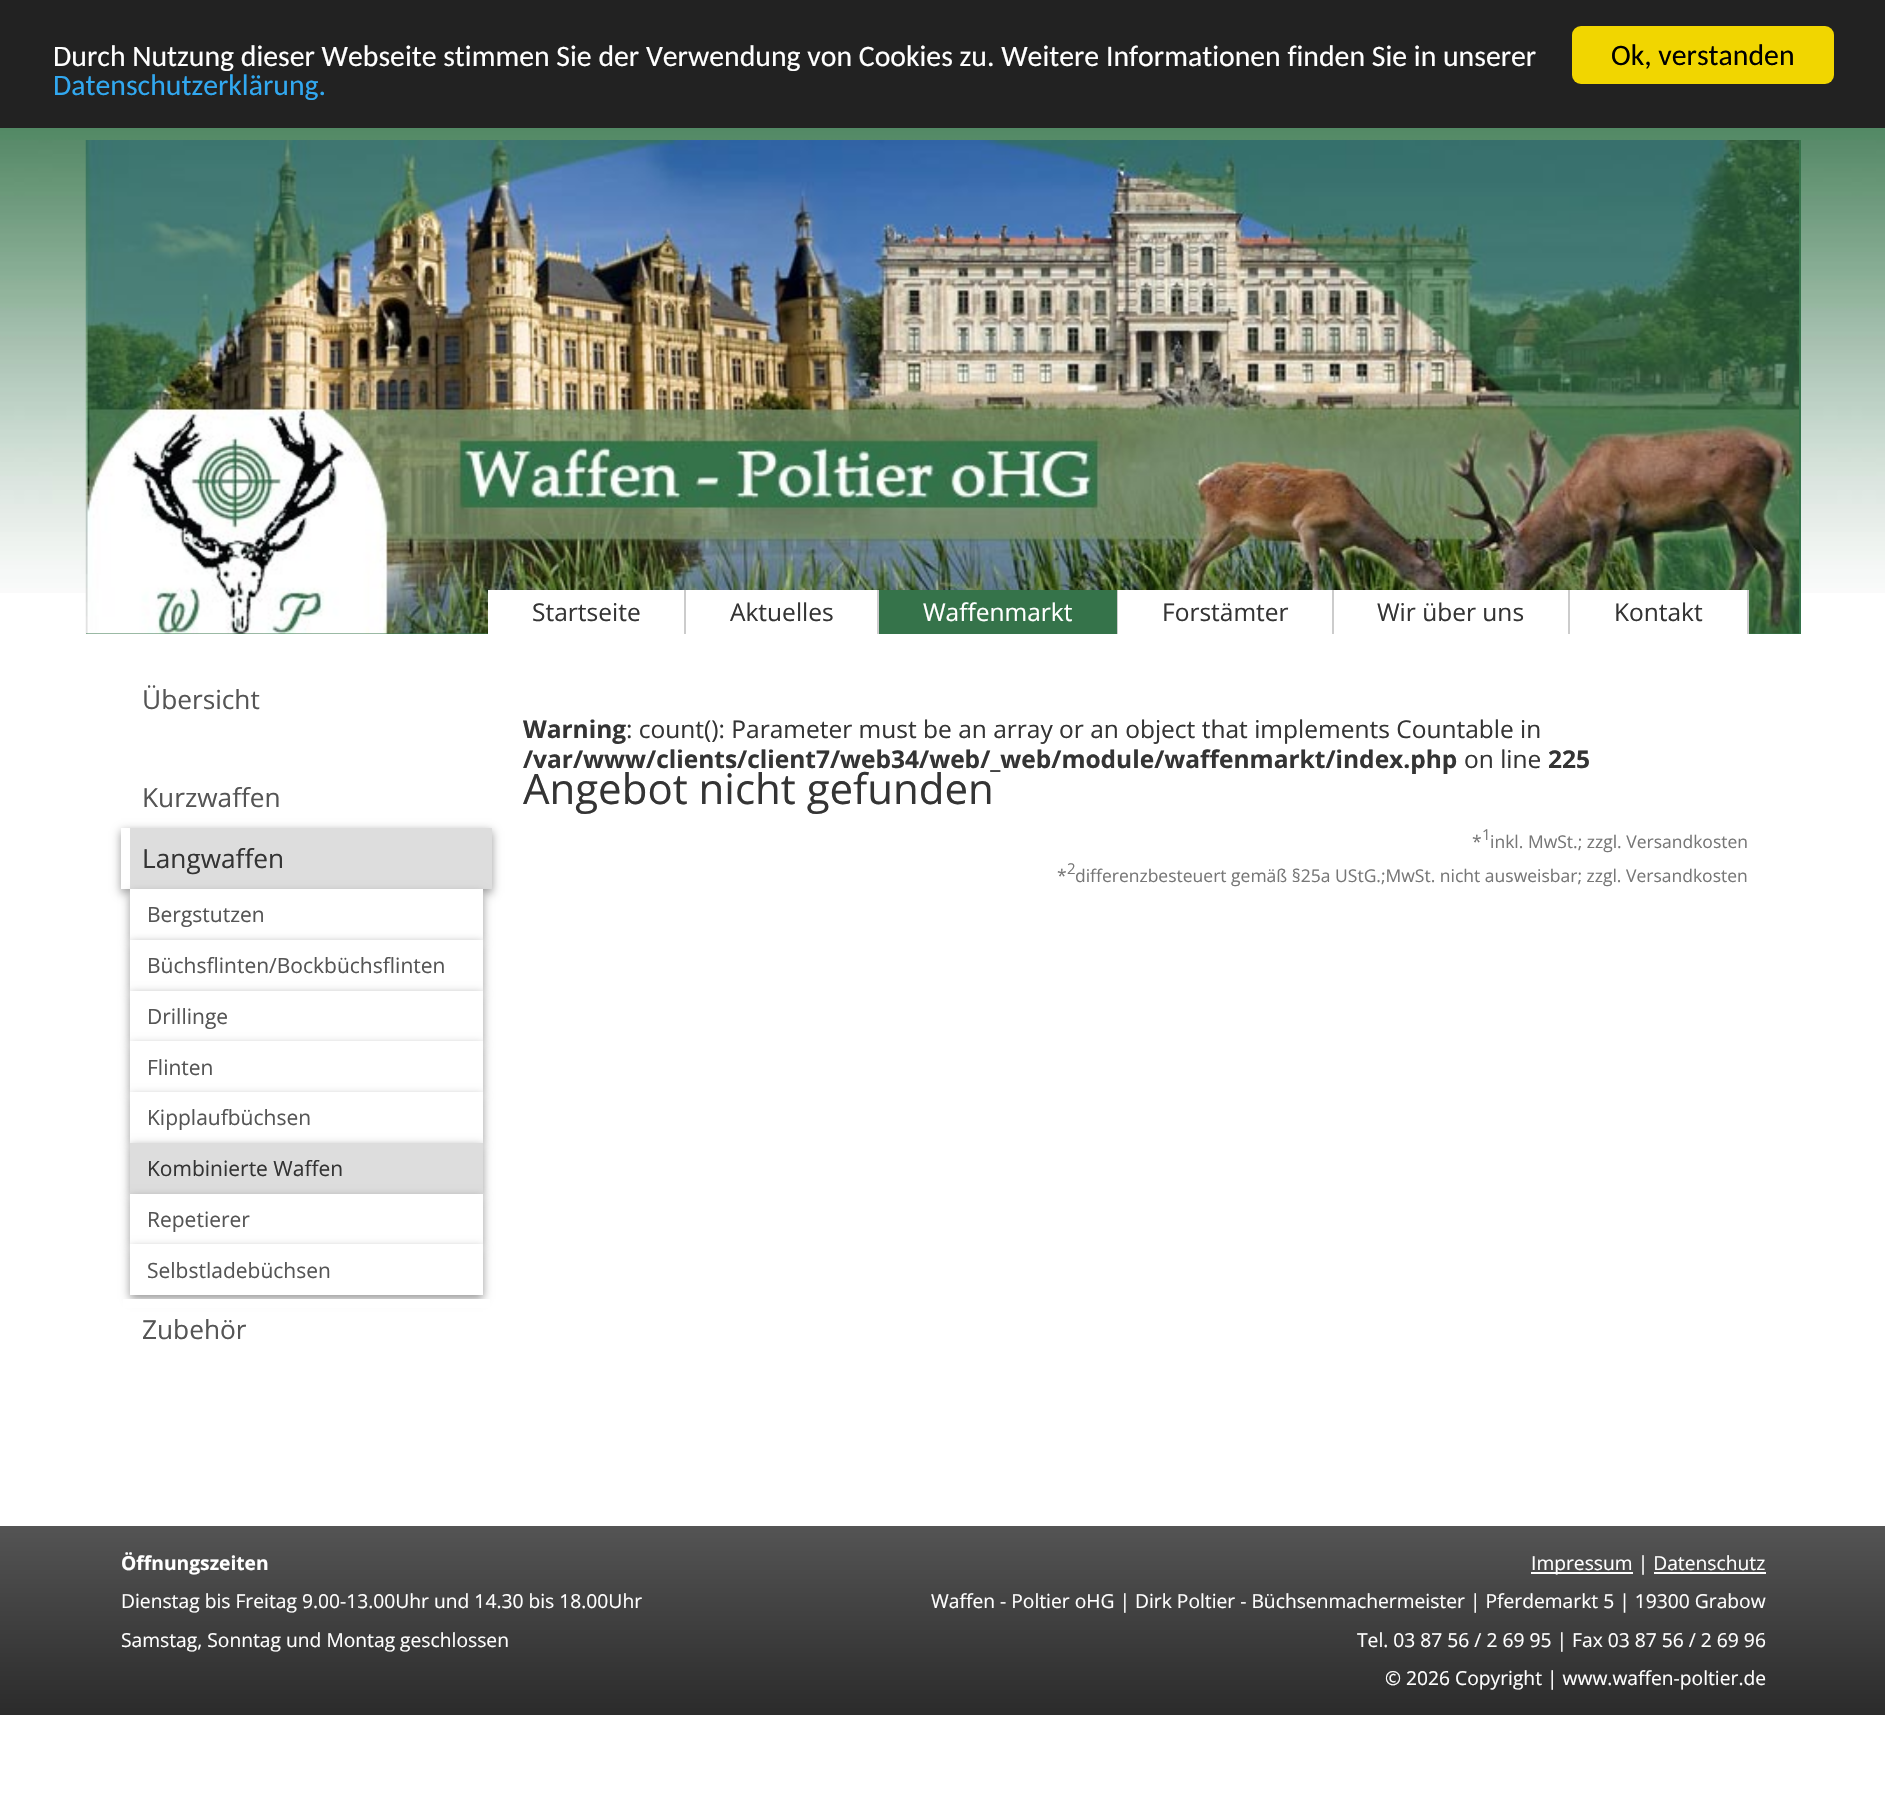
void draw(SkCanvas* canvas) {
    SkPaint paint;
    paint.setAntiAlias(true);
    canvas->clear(0xFFFFFFFF);
    canvas->drawImageRect(SkImages::DeferredFromEncodedData(SkData::MakeFromFileName("img1.png")), SkRect::MakeXYWH(0, 128, 1885, 465), SkSamplingOptions());
    paint.setColor(0xFF222222);
    canvas->drawRect(SkRect::MakeXYWH(0, 0, 1885, 128), paint);
    SkFont font1(fontMgr->matchFamilyStyle("Carlito", SkFontStyle::Normal()), 29.75f);
    font1.setSubpixel(true);
    paint.setColor(0xFFFFFFFF);
    canvas->drawString("Durch Nutzung dieser Webseite stimmen Sie der Verwendung von Cookies zu. Weitere Informationen finden Sie in unserer", 53, 66, font1, paint);
    paint.setColor(0xFF31A8F0);
    canvas->drawString("Datenschutzerklärung.", 53, 95, font1, paint);
    paint.setColor(0xFFF1D600);
    canvas->drawRoundRect(SkRect::MakeXYWH(1572, 26, 262, 58), 9, 9, paint);
    paint.setColor(0xFF000000);
    canvas->drawString("Ok, verstanden", 1611, 65, font1, paint);
    paint.setColor(0xFF35734A);
    canvas->drawRect(SkRect::MakeXYWH(86, 140, 1715, 494), paint);
    canvas->drawImageRect(SkImages::DeferredFromEncodedData(SkData::MakeFromFileName("img2.png")), SkRect::MakeXYWH(85, 140, 1714, 494), SkSamplingOptions());
    paint.setColor(0xFFFFFFFF);
    canvas->drawRect(SkRect::MakeXYWH(488, 590, 196, 44), paint);
    paint.setColor(0xFFCCCCCC);
    canvas->drawRect(SkRect::MakeXYWH(684, 590, 2, 44), paint);
    SkFont font2(fontMgr->matchFamilyStyle("Open Sans", SkFontStyle::Normal()), 24.5f);
    font2.setSubpixel(true);
    paint.setColor(0xFF343434);
    canvas->drawString("Startseite", 532, 621, font2, paint);
    paint.setColor(0xFFFFFFFF);
    canvas->drawRect(SkRect::MakeXYWH(686, 590, 191, 44), paint);
    paint.setColor(0xFFCCCCCC);
    canvas->drawRect(SkRect::MakeXYWH(877, 590, 2, 44), paint);
    paint.setColor(0xFF343434);
    canvas->drawString("Aktuelles", 730, 621, font2, paint);
    paint.setColor(0xFF35734A);
    canvas->drawRect(SkRect::MakeXYWH(879, 590, 238, 44), paint);
    paint.setColor(0xFFCCCCCC);
    canvas->drawRect(SkRect::MakeXYWH(1117, 590, 1, 44), paint);
    paint.setColor(0xFFFFFFFF);
    canvas->drawString("Waffenmarkt", 923, 621, font2, paint);
    canvas->drawRect(SkRect::MakeXYWH(1118, 590, 214, 44), paint);
    paint.setColor(0xFFCCCCCC);
    canvas->drawRect(SkRect::MakeXYWH(1332, 590, 2, 44), paint);
    paint.setColor(0xFF343434);
    canvas->drawString("Forstämter", 1162, 621, font2, paint);
    paint.setColor(0xFFFFFFFF);
    canvas->drawRect(SkRect::MakeXYWH(1334, 590, 234, 44), paint);
    paint.setColor(0xFFCCCCCC);
    canvas->drawRect(SkRect::MakeXYWH(1568, 590, 2, 44), paint);
    paint.setColor(0xFF343434);
    canvas->drawString("Wir über uns", 1377, 621, font2, paint);
    paint.setColor(0xFFFFFFFF);
    canvas->drawRect(SkRect::MakeXYWH(1570, 590, 177, 44), paint);
    paint.setColor(0xFFCCCCCC);
    canvas->drawRect(SkRect::MakeXYWH(1747, 590, 2, 44), paint);
    paint.setColor(0xFF343434);
    canvas->drawString("Kontakt", 1614, 621, font2, paint);
    SkFont font3(fontMgr->matchFamilyStyle("Open Sans", SkFontStyle::Normal()), 26.25f);
    font3.setSubpixel(true);
    paint.setColor(0xFF555555);
    canvas->drawString("Übersicht", 142, 709, font3, paint);
    canvas->drawString("Kurzwaffen", 142, 807, font3, paint);
    paint.setColor(0xFF999999);
    paint.setMaskFilter(SkMaskFilter::MakeBlur(kNormal_SkBlurStyle, 4.5f));
    canvas->drawRect(SkRect::MakeXYWH(121, 831, 371, 62), paint);
    paint.setMaskFilter(nullptr);
    paint.setColor(0xFFDDDDDD);
    canvas->drawRect(SkRect::MakeXYWH(130, 828, 362, 61), paint);
    paint.setColor(0xFFFFFFFF);
    canvas->drawRect(SkRect::MakeXYWH(121, 828, 9, 61), paint);
    paint.setColor(0xFF343434);
    canvas->drawString("Langwaffen", 142, 868, font3, paint);
    paint.setColor(0xFF999999);
    paint.setMaskFilter(SkMaskFilter::MakeBlur(kNormal_SkBlurStyle, 4.5f));
    canvas->drawRect(SkRect::MakeXYWH(130, 893, 353, 50), paint);
    paint.setMaskFilter(nullptr);
    paint.setColor(0xFFFFFFFF);
    canvas->drawRect(SkRect::MakeXYWH(130, 889, 353, 51), paint);
    SkFont font4(fontMgr->matchFamilyStyle("Open Sans", SkFontStyle::Normal()), 21);
    font4.setSubpixel(true);
    paint.setColor(0xFF555555);
    canvas->drawString("Bergstutzen", 147, 922, font4, paint);
    paint.setColor(0xFF999999);
    paint.setMaskFilter(SkMaskFilter::MakeBlur(kNormal_SkBlurStyle, 4.5f));
    canvas->drawRect(SkRect::MakeXYWH(130, 943, 353, 51), paint);
    paint.setMaskFilter(nullptr);
    paint.setColor(0xFFFFFFFF);
    canvas->drawRect(SkRect::MakeXYWH(130, 940, 353, 51), paint);
    paint.setColor(0xFF555555);
    canvas->drawString("Büchsflinten/Bockbüchsflinten", 147, 973, font4, paint);
    paint.setColor(0xFF999999);
    paint.setMaskFilter(SkMaskFilter::MakeBlur(kNormal_SkBlurStyle, 4.5f));
    canvas->drawRect(SkRect::MakeXYWH(130, 994, 353, 51), paint);
    paint.setMaskFilter(nullptr);
    paint.setColor(0xFFFFFFFF);
    canvas->drawRect(SkRect::MakeXYWH(130, 991, 353, 50), paint);
    paint.setColor(0xFF555555);
    canvas->drawString("Drillinge", 147, 1024, font4, paint);
    paint.setColor(0xFF999999);
    paint.setMaskFilter(SkMaskFilter::MakeBlur(kNormal_SkBlurStyle, 4.5f));
    canvas->drawRect(SkRect::MakeXYWH(130, 1045, 353, 51), paint);
    paint.setMaskFilter(nullptr);
    paint.setColor(0xFFFFFFFF);
    canvas->drawRect(SkRect::MakeXYWH(130, 1041, 353, 51), paint);
    paint.setColor(0xFF555555);
    canvas->drawString("Flinten", 147, 1075, font4, paint);
    paint.setColor(0xFF999999);
    paint.setMaskFilter(SkMaskFilter::MakeBlur(kNormal_SkBlurStyle, 4.5f));
    canvas->drawRect(SkRect::MakeXYWH(130, 1096, 353, 50), paint);
    paint.setMaskFilter(nullptr);
    paint.setColor(0xFFFFFFFF);
    canvas->drawRect(SkRect::MakeXYWH(130, 1092, 353, 51), paint);
    paint.setColor(0xFF555555);
    canvas->drawString("Kipplaufbüchsen", 147, 1125, font4, paint);
    paint.setColor(0xFF999999);
    paint.setMaskFilter(SkMaskFilter::MakeBlur(kNormal_SkBlurStyle, 4.5f));
    canvas->drawRect(SkRect::MakeXYWH(130, 1146, 353, 51), paint);
    paint.setMaskFilter(nullptr);
    paint.setColor(0xFFDDDDDD);
    canvas->drawRect(SkRect::MakeXYWH(130, 1143, 353, 51), paint);
    paint.setColor(0xFF343434);
    canvas->drawString("Kombinierte Waffen", 147, 1176, font4, paint);
    paint.setColor(0xFF999999);
    paint.setMaskFilter(SkMaskFilter::MakeBlur(kNormal_SkBlurStyle, 4.5f));
    canvas->drawRect(SkRect::MakeXYWH(130, 1197, 353, 51), paint);
    paint.setMaskFilter(nullptr);
    paint.setColor(0xFFFFFFFF);
    canvas->drawRect(SkRect::MakeXYWH(130, 1194, 353, 50), paint);
    paint.setColor(0xFF555555);
    canvas->drawString("Repetierer", 147, 1227, font4, paint);
    paint.setColor(0xFF999999);
    paint.setMaskFilter(SkMaskFilter::MakeBlur(kNormal_SkBlurStyle, 4.5f));
    canvas->drawRect(SkRect::MakeXYWH(130, 1248, 353, 51), paint);
    paint.setMaskFilter(nullptr);
    paint.setColor(0xFFFFFFFF);
    canvas->drawRect(SkRect::MakeXYWH(130, 1244, 353, 51), paint);
    paint.setColor(0xFF555555);
    canvas->drawString("Selbstladebüchsen", 147, 1278, font4, paint);
    paint.setColor(0xFFFFFFFF);
    canvas->drawRect(SkRect::MakeXYWH(123, 1299, 367, 9), paint);
    paint.setColor(0xFF555555);
    canvas->drawString("Zubehör", 142, 1339, font3, paint);
    SkFont font5(fontMgr->matchFamilyStyle("Open Sans", SkFontStyle::Bold()), 24.5f);
    font5.setSubpixel(true);
    paint.setColor(0xFF343434);
    canvas->drawString("Warning", 523, 738, font5, paint);
    canvas->drawString(": count(): Parameter must be an array or an object that implements Countable in", 626, 738, font2, paint);
    canvas->drawString("/var/www/clients/client7/web34/web/_web/module/waffenmarkt/index.php", 523, 768, font5, paint);
    canvas->drawString("on line", 1464, 768, font2, paint);
    canvas->drawString("225", 1548, 768, font5, paint);
    SkFont font6(fontMgr->matchFamilyStyle("Open Sans", SkFontStyle::Normal()), 42);
    font6.setSubpixel(true);
    canvas->drawString("Angebot nicht gefunden", 523, 804, font6, paint);
    SkFont font7(fontMgr->matchFamilyStyle("Open Sans", SkFontStyle::Normal()), 17.5f);
    font7.setSubpixel(true);
    paint.setColor(0xFF777777);
    canvas->drawString("*", 1472, 848, font7, paint);
    SkFont font8(fontMgr->matchFamilyStyle("Open Sans", SkFontStyle::Normal()), 15);
    font8.setSubpixel(true);
    canvas->drawString("1", 1482, 840, font8, paint);
    canvas->drawString("inkl. MwSt.; zzgl. Versandkosten", 1490, 848, font7, paint);
    canvas->drawString("*", 1057, 882, font7, paint);
    canvas->drawString("2", 1067, 874, font8, paint);
    canvas->drawString("differenzbesteuert gemäß §25a UStG.;MwSt. nicht ausweisbar; zzgl. Versandkosten", 1075, 882, font7, paint);
    {
        const SkColor colors[] = {0xFF545454, 0xFF2B2B2B};
        const float stops[] = {0, 1};
        const SkPoint ends[] = {{943, 1526}, {943, 1715}};
        paint.setShader(SkGradientShader::MakeLinear(ends, colors, stops, 2, SkTileMode::kClamp));
        paint.setAlpha(255);
    }
    canvas->drawRect(SkRect::MakeXYWH(0, 1526, 1885, 189), paint);
    SkFont font9(fontMgr->matchFamilyStyle("Open Sans", SkFontStyle::Bold()), 19.25f);
    font9.setSubpixel(true);
    paint.setShader(nullptr);
    paint.setColor(0xFFFFFFFF);
    canvas->drawString("Öffnungszeiten", 121, 1570, font9, paint);
    SkFont font10(fontMgr->matchFamilyStyle("Open Sans", SkFontStyle::Normal()), 19.25f);
    font10.setSubpixel(true);
    canvas->drawString("Dienstag bis Freitag 9.00-13.00Uhr und 14.30 bis 18.00Uhr", 121, 1608, font10, paint);
    canvas->drawString("Samstag, Sonntag und Montag geschlossen", 121, 1647, font10, paint);
    canvas->drawRect(SkRect::MakeXYWH(1531, 1572, 102, 2), paint);
    canvas->drawString("Impressum | Datenschutz", 1531, 1570, font10, paint);
    canvas->drawRect(SkRect::MakeXYWH(1654, 1572, 112, 2), paint);
    canvas->drawString("Waffen - Poltier oHG | Dirk Poltier - Büchsenmachermeister | Pferdemarkt 5 | 19300 Grabow", 931, 1608, font10, paint);
    canvas->drawString("Tel. 03 87 56 / 2 69 95 | Fax 03 87 56 / 2 69 96", 1357, 1647, font10, paint);
    canvas->drawString("© 2026 Copyright | www.waffen-poltier.de", 1385, 1685, font10, paint);
}
